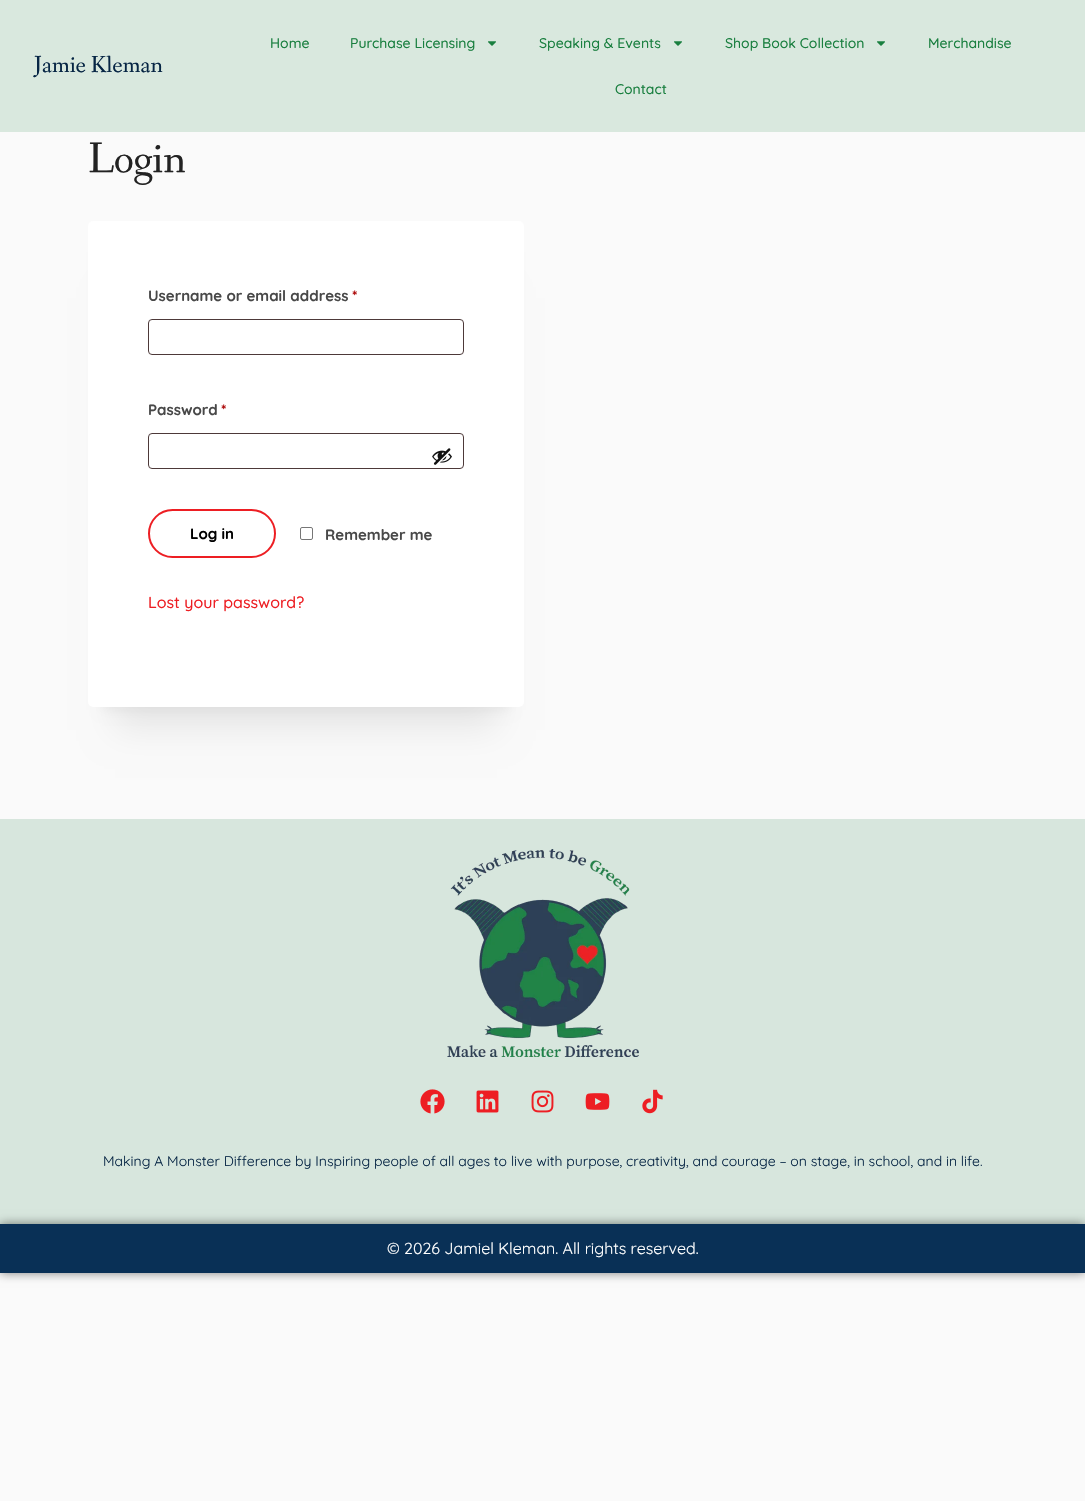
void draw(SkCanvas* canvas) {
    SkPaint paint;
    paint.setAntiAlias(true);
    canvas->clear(0xFFFAFAFA);
    paint.setColor(0xFFD9E8DE);
    canvas->drawRect(SkRect::MakeXYWH(0, 0, 1085, 132), paint);
    SkFont font1(fontMgr->matchFamilyStyle("Fanwood Text", SkFontStyle::Normal()), 24);
    font1.setSubpixel(true);
    paint.setColor(0xFF062544);
    canvas->drawString("Jamie Kleman", 34, 72, font1, paint);
    SkFont font2(fontMgr->matchFamilyStyle("Quicksand", SkFontStyle(500, SkFontStyle::kNormal_Width, SkFontStyle::kUpright_Slant)), 14);
    font2.setSubpixel(true);
    paint.setColor(0xFF197F3F);
    canvas->drawString("Home", 270, 48, font2, paint);
    canvas->drawString("Purchase Licensing", 350, 48, font2, paint);
    canvas->drawImageRect(SkImages::DeferredFromEncodedData(SkData::MakeFromFileName("img1.png")), SkRect::MakeXYWH(488, 41, 8, 5), SkSamplingOptions());
    canvas->drawString("Speaking & Events", 539, 48, font2, paint);
    canvas->drawImageRect(SkImages::DeferredFromEncodedData(SkData::MakeFromFileName("img1.png")), SkRect::MakeXYWH(674, 41, 8, 5), SkSamplingOptions());
    canvas->drawString("Shop Book Collection", 725, 48, font2, paint);
    canvas->drawImageRect(SkImages::DeferredFromEncodedData(SkData::MakeFromFileName("img1.png")), SkRect::MakeXYWH(877, 41, 8, 5), SkSamplingOptions());
    canvas->drawString("Merchandise", 928, 48, font2, paint);
    canvas->drawString("Contact", 615, 94, font2, paint);
    SkFont font3(fontMgr->matchFamilyStyle("Fanwood Text", SkFontStyle::Normal()), 44);
    font3.setSubpixel(true);
    paint.setColor(0xFF222222);
    canvas->drawString("Login", 88, 172, font3, paint);
    paint.setColor(0x12000000);
    paint.setMaskFilter(SkMaskFilter::MakeBlur(kNormal_SkBlurStyle, 16));
    canvas->drawRect(SkRect::MakeXYWH(115, 298, 382, 432), paint);
    paint.setMaskFilter(nullptr);
    paint.setColor(0x0D000000);
    paint.setMaskFilter(SkMaskFilter::MakeBlur(kNormal_SkBlurStyle, 5.5f));
    canvas->drawRect(SkRect::MakeXYWH(102, 252, 408, 458), paint);
    paint.setMaskFilter(nullptr);
    paint.setColor(0xFFFFFFFF);
    canvas->drawRoundRect(SkRect::MakeXYWH(88, 221, 436, 486), 5, 5, paint);
    SkFont font4(fontMgr->matchFamilyStyle("Quicksand", SkFontStyle::Bold()), 15);
    font4.setSubpixel(true);
    paint.setColor(0xFF484848);
    canvas->drawString("Username or email address", 148, 301, font4, paint);
    paint.setColor(0xFFAA0000);
    canvas->drawString("*", 352, 301, font4, paint);
    paint.setStyle(SkPaint::kStroke_Style);
    paint.setStrokeWidth(1);
    paint.setColor(0xFF4D3939);
    canvas->drawRoundRect(SkRect::MakeXYWH(148.5f, 319.5f, 315, 35), 3.5f, 3.5f, paint);
    paint.setStyle(SkPaint::kFill_Style);
    paint.setColor(0xFF484848);
    canvas->drawString("Password", 148, 415, font4, paint);
    paint.setColor(0xFFAA0000);
    canvas->drawString("*", 221, 415, font4, paint);
    paint.setStyle(SkPaint::kStroke_Style);
    paint.setColor(0xFF4D3939);
    canvas->drawRoundRect(SkRect::MakeXYWH(148.5f, 433.5f, 315, 35), 3.5f, 3.5f, paint);
    canvas->drawImageRect(SkImages::DeferredFromEncodedData(SkData::MakeFromFileName("img2.png")), SkRect::MakeXYWH(432, 448, 20, 17), SkSamplingOptions());
    paint.setStrokeWidth(2);
    paint.setColor(0xFFED1E23);
    canvas->drawRoundRect(SkRect::MakeXYWH(149, 510, 126, 47), 23.5f, 23.5f, paint);
    paint.setStyle(SkPaint::kFill_Style);
    paint.setColor(0xFF000000);
    canvas->drawString("Log in", 190, 539, font4, paint);
    paint.setStyle(SkPaint::kStroke_Style);
    paint.setStrokeWidth(1);
    paint.setColor(0xFF767676);
    canvas->drawRoundRect(SkRect::MakeXYWH(300.5f, 527.5f, 12, 12), 1.5f, 1.5f, paint);
    paint.setStyle(SkPaint::kFill_Style);
    paint.setColor(0xFF484848);
    canvas->drawString("Remember me", 325, 540, font4, paint);
    SkFont font5(fontMgr->matchFamilyStyle("Quicksand", SkFontStyle(500, SkFontStyle::kNormal_Width, SkFontStyle::kUpright_Slant)), 16);
    font5.setSubpixel(true);
    paint.setColor(0xFFED1E23);
    canvas->drawString("Lost your password?", 148, 608, font5, paint);
    paint.setColor(0xFFD7E6DD);
    canvas->drawRect(SkRect::MakeXYWH(0, 819, 1085, 405), paint);
    canvas->drawImageRect(SkImages::DeferredFromEncodedData(SkData::MakeFromFileName("img3.png")), SkRect::MakeXYWH(447, 849, 192, 208), SkSamplingOptions());
    canvas->drawImageRect(SkImages::DeferredFromEncodedData(SkData::MakeFromFileName("img4.png")), SkRect::MakeXYWH(420, 1089, 25, 25), SkSamplingOptions());
    canvas->drawImageRect(SkImages::DeferredFromEncodedData(SkData::MakeFromFileName("img5.png")), SkRect::MakeXYWH(476, 1090, 23, 23), SkSamplingOptions());
    canvas->drawImageRect(SkImages::DeferredFromEncodedData(SkData::MakeFromFileName("img6.png")), SkRect::MakeXYWH(531, 1090, 23, 23), SkSamplingOptions());
    canvas->drawImageRect(SkImages::DeferredFromEncodedData(SkData::MakeFromFileName("img7.png")), SkRect::MakeXYWH(585, 1093, 25, 17), SkSamplingOptions());
    canvas->drawImageRect(SkImages::DeferredFromEncodedData(SkData::MakeFromFileName("img8.png")), SkRect::MakeXYWH(642, 1089, 21, 25), SkSamplingOptions());
    SkFont font6(fontMgr->matchFamilyStyle("Quicksand", SkFontStyle::Normal()), 14);
    font6.setSubpixel(true);
    paint.setColor(0xFF062544);
    canvas->drawString("Making A Monster Difference by Inspiring people of all ages to live with purpose, creativity, and courage – on stage, in school, and in life.", 103, 1166, font6, paint);
    paint.setColor(0x80000000);
    paint.setMaskFilter(SkMaskFilter::MakeBlur(kNormal_SkBlurStyle, 5));
    canvas->drawRect(SkRect::MakeXYWH(0, 1224, 1085, 49), paint);
    paint.setMaskFilter(nullptr);
    paint.setColor(0xFF093056);
    canvas->drawRect(SkRect::MakeXYWH(0, 1224, 1085, 49), paint);
    SkFont font7(fontMgr->matchFamilyStyle("Quicksand", SkFontStyle::Normal()), 16);
    font7.setSubpixel(true);
    paint.setColor(0xFFFFFFFF);
    canvas->drawString("© 2026 Jamiel Kleman. All rights reserved.", 387, 1254, font7, paint);
}
